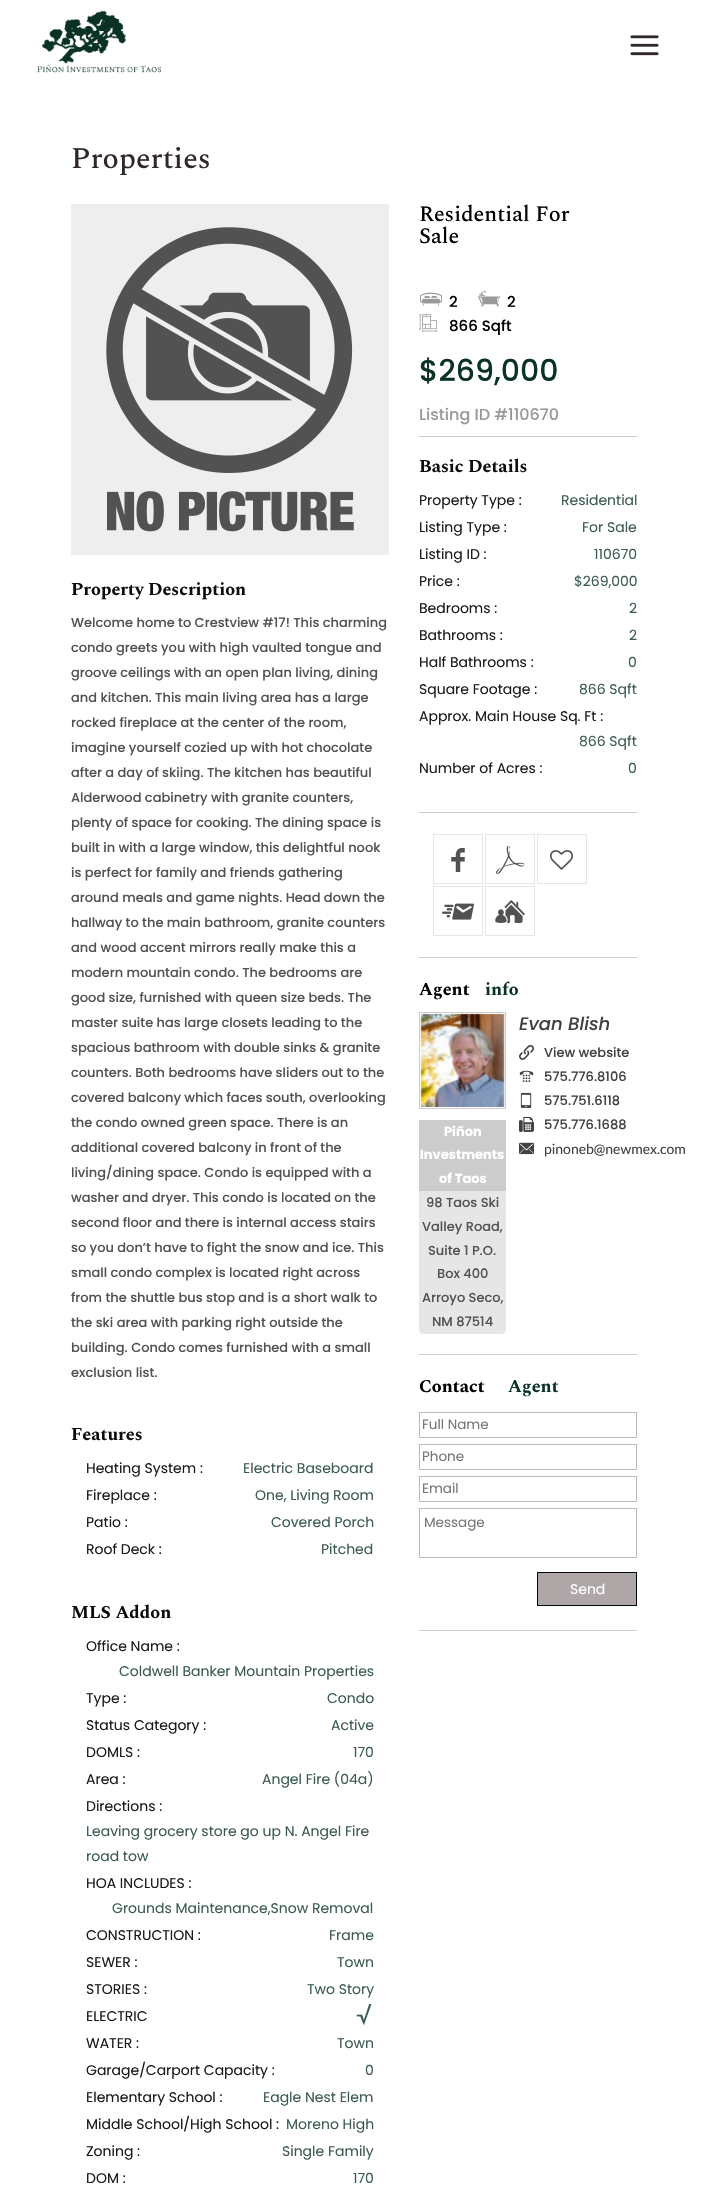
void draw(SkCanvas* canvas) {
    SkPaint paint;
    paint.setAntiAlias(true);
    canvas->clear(0xFFFFFFFF);
    canvas->drawImageRect(SkImages::DeferredFromEncodedData(SkData::MakeFromFileName("img1.png")), SkRect::MakeXYWH(37, 10, 125, 63), SkSamplingOptions());
    canvas->drawImageRect(SkImages::DeferredFromEncodedData(SkData::MakeFromFileName("img2.png")), SkRect::MakeXYWH(630, 35, 29, 21), SkSamplingOptions());
    SkFont font1(fontMgr->matchFamilyStyle("Spectral SC", SkFontStyle(500, SkFontStyle::kNormal_Width, SkFontStyle::kUpright_Slant)), 30);
    font1.setSubpixel(true);
    paint.setColor(0xFF302727);
    canvas->drawString("Properties", 71, 168, font1, paint);
    paint.setColor(0xFFEEEEEE);
    canvas->drawRect(SkRect::MakeXYWH(71, 204, 318, 351), paint);
    canvas->drawImageRect(SkImages::DeferredFromEncodedData(SkData::MakeFromFileName("img3.png")), SkRect::MakeXYWH(106, 227, 248, 305), SkSamplingOptions());
    SkFont font2(fontMgr->matchFamilyStyle("Spectral SC", SkFontStyle::Bold()), 18);
    font2.setSubpixel(true);
    paint.setColor(0xFF0D0D0D);
    canvas->drawString("Property Description", 71, 595, font2, paint);
    SkFont font3(fontMgr->matchFamilyStyle("Poppins", SkFontStyle(500, SkFontStyle::kNormal_Width, SkFontStyle::kUpright_Slant)), 13);
    font3.setSubpixel(true);
    paint.setColor(0xFF525252);
    canvas->drawString("Welcome home to Crestview #17! This charming", 71, 627, font3, paint);
    canvas->drawString("condo greets you with high vaulted tongue and", 71, 652, font3, paint);
    canvas->drawString("groove ceilings with an open plan living, dining", 71, 677, font3, paint);
    canvas->drawString("and kitchen. This main living area has a large", 71, 702, font3, paint);
    canvas->drawString("rocked fireplace at the center of the room,", 71, 727, font3, paint);
    canvas->drawString("imagine yourself cozied up with hot chocolate", 71, 752, font3, paint);
    canvas->drawString("after a day of skiing. The kitchen has beautiful", 71, 777, font3, paint);
    canvas->drawString("Alderwood cabinetry with granite counters,", 71, 802, font3, paint);
    canvas->drawString("plenty of space for cooking. The dining space is", 71, 827, font3, paint);
    canvas->drawString("built in with a large window, this delightful nook", 71, 852, font3, paint);
    canvas->drawString("is perfect for family and friends gathering", 71, 877, font3, paint);
    canvas->drawString("around meals and game nights. Head down the", 71, 902, font3, paint);
    canvas->drawString("hallway to the main bathroom, granite counters", 71, 927, font3, paint);
    canvas->drawString("and wood accent mirrors really make this a", 71, 952, font3, paint);
    canvas->drawString("modern mountain condo. The bedrooms are", 71, 977, font3, paint);
    canvas->drawString("good size, furnished with queen size beds. The", 71, 1002, font3, paint);
    canvas->drawString("master suite has large closets leading to the", 71, 1027, font3, paint);
    canvas->drawString("spacious bathroom with double sinks & granite", 71, 1052, font3, paint);
    canvas->drawString("counters. Both bedrooms have sliders out to the", 71, 1077, font3, paint);
    canvas->drawString("covered balcony which faces south, overlooking", 71, 1102, font3, paint);
    canvas->drawString("the condo owned green space. There is an", 71, 1127, font3, paint);
    canvas->drawString("additional covered balcony in front of the", 71, 1152, font3, paint);
    canvas->drawString("living/dining space. Condo is equipped with a", 71, 1177, font3, paint);
    canvas->drawString("washer and dryer. This condo is located on the", 71, 1202, font3, paint);
    canvas->drawString("second floor and there is internal access stairs", 71, 1227, font3, paint);
    canvas->drawString("so you don’t have to fight the snow and ice. This", 71, 1252, font3, paint);
    canvas->drawString("small condo complex is located right across", 71, 1277, font3, paint);
    canvas->drawString("from the shuttle bus stop and is a short walk to", 71, 1302, font3, paint);
    canvas->drawString("the ski area with parking right outside the", 71, 1327, font3, paint);
    canvas->drawString("building. Condo comes furnished with a small", 71, 1352, font3, paint);
    canvas->drawString("exclusion list.", 71, 1377, font3, paint);
    paint.setColor(0xFF0D0D0D);
    canvas->drawString("Features", 71, 1440, font2, paint);
    SkFont font4(fontMgr->matchFamilyStyle("Poppins", SkFontStyle::Normal()), 14);
    font4.setSubpixel(true);
    paint.setColor(0xFF1A1A1A);
    canvas->drawString("Heating System :", 86, 1473, font4, paint);
    paint.setColor(0xFF3B5B52);
    canvas->drawString("Electric Baseboard", 243, 1473, font4, paint);
    paint.setColor(0xFF1A1A1A);
    canvas->drawString("Fireplace :", 86, 1500, font4, paint);
    paint.setColor(0xFF3B5B52);
    canvas->drawString("One, Living Room", 255, 1500, font4, paint);
    paint.setColor(0xFF1A1A1A);
    canvas->drawString("Patio :", 86, 1527, font4, paint);
    paint.setColor(0xFF3B5B52);
    canvas->drawString("Covered Porch", 271, 1527, font4, paint);
    paint.setColor(0xFF1A1A1A);
    canvas->drawString("Roof Deck :", 86, 1554, font4, paint);
    paint.setColor(0xFF3B5B52);
    canvas->drawString("Pitched", 321, 1554, font4, paint);
    paint.setColor(0xFF0D0D0D);
    canvas->drawString("MLS Addon", 71, 1618, font2, paint);
    paint.setColor(0xFF1A1A1A);
    canvas->drawString("Office Name :", 86, 1651, font4, paint);
    paint.setColor(0xFF3B5B52);
    canvas->drawString("Coldwell Banker Mountain Properties", 119, 1676, font4, paint);
    paint.setColor(0xFF1A1A1A);
    canvas->drawString("Type :", 86, 1703, font4, paint);
    paint.setColor(0xFF3B5B52);
    canvas->drawString("Condo", 327, 1703, font4, paint);
    paint.setColor(0xFF1A1A1A);
    canvas->drawString("Status Category :", 86, 1730, font4, paint);
    paint.setColor(0xFF3B5B52);
    canvas->drawString("Active", 331, 1730, font4, paint);
    paint.setColor(0xFF1A1A1A);
    canvas->drawString("DOMLS :", 86, 1757, font4, paint);
    paint.setColor(0xFF3B5B52);
    canvas->drawString("170", 353, 1757, font4, paint);
    paint.setColor(0xFF1A1A1A);
    canvas->drawString("Area :", 86, 1784, font4, paint);
    paint.setColor(0xFF3B5B52);
    canvas->drawString("Angel Fire (04a)", 262, 1784, font4, paint);
    paint.setColor(0xFF1A1A1A);
    canvas->drawString("Directions :", 86, 1811, font4, paint);
    paint.setColor(0xFF3B5B52);
    canvas->drawString("Leaving grocery store go up N. Angel Fire", 86, 1836, font4, paint);
    canvas->drawString("road tow", 86, 1861, font4, paint);
    paint.setColor(0xFF1A1A1A);
    canvas->drawString("HOA INCLUDES :", 86, 1888, font4, paint);
    paint.setColor(0xFF3B5B52);
    canvas->drawString("Grounds Maintenance,Snow Removal", 112, 1913, font4, paint);
    paint.setColor(0xFF1A1A1A);
    canvas->drawString("CONSTRUCTION :", 86, 1940, font4, paint);
    paint.setColor(0xFF3B5B52);
    canvas->drawString("Frame", 329, 1940, font4, paint);
    paint.setColor(0xFF1A1A1A);
    canvas->drawString("SEWER :", 86, 1967, font4, paint);
    paint.setColor(0xFF3B5B52);
    canvas->drawString("Town", 337, 1967, font4, paint);
    paint.setColor(0xFF1A1A1A);
    canvas->drawString("STORIES :", 86, 1994, font4, paint);
    paint.setColor(0xFF3B5B52);
    canvas->drawString("Two Story", 307, 1994, font4, paint);
    paint.setColor(0xFF1A1A1A);
    canvas->drawString("ELECTRIC", 86, 2021, font4, paint);
    canvas->drawImageRect(SkImages::DeferredFromEncodedData(SkData::MakeFromFileName("img4.png")), SkRect::MakeXYWH(356, 2004, 16, 22), SkSamplingOptions());
    canvas->drawString("WATER :", 86, 2048, font4, paint);
    paint.setColor(0xFF3B5B52);
    canvas->drawString("Town", 337, 2048, font4, paint);
    paint.setColor(0xFF1A1A1A);
    canvas->drawString("Garage/Carport Capacity :", 86, 2075, font4, paint);
    paint.setColor(0xFF3B5B52);
    canvas->drawString("0", 365, 2075, font4, paint);
    paint.setColor(0xFF1A1A1A);
    canvas->drawString("Elementary School :", 86, 2102, font4, paint);
    paint.setColor(0xFF3B5B52);
    canvas->drawString("Eagle Nest Elem", 263, 2102, font4, paint);
    paint.setColor(0xFF1A1A1A);
    canvas->drawString("Middle School/High School :", 86, 2129, font4, paint);
    paint.setColor(0xFF3B5B52);
    canvas->drawString("Moreno High", 286, 2129, font4, paint);
    paint.setColor(0xFF1A1A1A);
    canvas->drawString("Zoning :", 86, 2156, font4, paint);
    paint.setColor(0xFF3B5B52);
    canvas->drawString("Single Family", 282, 2156, font4, paint);
    paint.setColor(0xFF1A1A1A);
    canvas->drawString("DOM :", 86, 2183, font4, paint);
    paint.setColor(0xFF3B5B52);
    canvas->drawString("170", 353, 2183, font4, paint);
    paint.setColor(0xFFCCCCCC);
    canvas->drawRect(SkRect::MakeXYWH(419, 436, 218, 1), paint);
    SkFont font5(fontMgr->matchFamilyStyle("Spectral SC", SkFontStyle(500, SkFontStyle::kNormal_Width, SkFontStyle::kUpright_Slant)), 22);
    font5.setSubpixel(true);
    paint.setColor(0xFF000000);
    canvas->drawString("Residential For", 419, 221, font5, paint);
    canvas->drawString("Sale", 419, 243, font5, paint);
    canvas->drawImageRect(SkImages::DeferredFromEncodedData(SkData::MakeFromFileName("img5.png")), SkRect::MakeXYWH(420, 292, 22, 14), SkSamplingOptions());
    SkFont font6(fontMgr->matchFamilyStyle("Poppins", SkFontStyle(500, SkFontStyle::kNormal_Width, SkFontStyle::kUpright_Slant)), 15);
    font6.setSubpixel(true);
    canvas->drawString("2", 449, 307, font6, paint);
    canvas->drawImageRect(SkImages::DeferredFromEncodedData(SkData::MakeFromFileName("img6.png")), SkRect::MakeXYWH(477, 291, 24, 16), SkSamplingOptions());
    canvas->drawString("2", 507, 307, font6, paint);
    canvas->drawImageRect(SkImages::DeferredFromEncodedData(SkData::MakeFromFileName("img7.png")), SkRect::MakeXYWH(419, 314, 18, 18), SkSamplingOptions());
    canvas->drawString("866 Sqft", 449, 331, font6, paint);
    SkFont font7(fontMgr->matchFamilyStyle("Poppins", SkFontStyle(500, SkFontStyle::kNormal_Width, SkFontStyle::kUpright_Slant)), 30);
    font7.setSubpixel(true);
    paint.setColor(0xFF0A3227);
    canvas->drawString("$269,000", 419, 381, font7, paint);
    SkFont font8(fontMgr->matchFamilyStyle("Poppins", SkFontStyle(500, SkFontStyle::kNormal_Width, SkFontStyle::kUpright_Slant)), 16);
    font8.setSubpixel(true);
    paint.setColor(0xFF999999);
    canvas->drawString("Listing ID #110670", 419, 420, font8, paint);
    paint.setColor(0xFF0D0D0D);
    canvas->drawString("Basic Details", 419, 472, font2, paint);
    paint.setColor(0xFF1A1A1A);
    canvas->drawString("Property Type :", 419, 505, font4, paint);
    paint.setColor(0xFF3B5B52);
    canvas->drawString("Residential", 561, 505, font4, paint);
    paint.setColor(0xFF1A1A1A);
    canvas->drawString("Listing Type :", 419, 532, font4, paint);
    paint.setColor(0xFF3B5B52);
    canvas->drawString("For Sale", 582, 532, font4, paint);
    paint.setColor(0xFF1A1A1A);
    canvas->drawString("Listing ID :", 419, 559, font4, paint);
    paint.setColor(0xFF3B5B52);
    canvas->drawString("110670", 594, 559, font4, paint);
    paint.setColor(0xFF1A1A1A);
    canvas->drawString("Price :", 419, 586, font4, paint);
    paint.setColor(0xFF3B5B52);
    canvas->drawString("$269,000", 574, 586, font4, paint);
    paint.setColor(0xFF1A1A1A);
    canvas->drawString("Bedrooms :", 419, 613, font4, paint);
    paint.setColor(0xFF3B5B52);
    canvas->drawString("2", 629, 613, font4, paint);
    paint.setColor(0xFF1A1A1A);
    canvas->drawString("Bathrooms :", 419, 640, font4, paint);
    paint.setColor(0xFF3B5B52);
    canvas->drawString("2", 629, 640, font4, paint);
    paint.setColor(0xFF1A1A1A);
    canvas->drawString("Half Bathrooms :", 419, 667, font4, paint);
    paint.setColor(0xFF3B5B52);
    canvas->drawString("0", 628, 667, font4, paint);
    paint.setColor(0xFF1A1A1A);
    canvas->drawString("Square Footage :", 419, 694, font4, paint);
    paint.setColor(0xFF3B5B52);
    canvas->drawString("866 Sqft", 579, 694, font4, paint);
    paint.setColor(0xFF1A1A1A);
    canvas->drawString("Approx. Main House Sq. Ft :", 419, 721, font4, paint);
    paint.setColor(0xFF3B5B52);
    canvas->drawString("866 Sqft", 579, 746, font4, paint);
    paint.setColor(0xFF1A1A1A);
    canvas->drawString("Number of Acres :", 419, 773, font4, paint);
    paint.setColor(0xFF3B5B52);
    canvas->drawString("0", 628, 773, font4, paint);
    paint.setColor(0xFFCCCCCC);
    canvas->drawRect(SkRect::MakeXYWH(419, 812, 218, 1), paint);
    paint.setStyle(SkPaint::kStroke_Style);
    paint.setStrokeWidth(1);
    paint.setColor(0xFFE6E6E6);
    canvas->drawRect(SkRect::MakeXYWH(433.5f, 834.5f, 49, 49), paint);
    canvas->drawImageRect(SkImages::DeferredFromEncodedData(SkData::MakeFromFileName("img8.png")), SkRect::MakeXYWH(451, 848, 14, 24), SkSamplingOptions());
    canvas->drawRect(SkRect::MakeXYWH(485.5f, 834.5f, 49, 49), paint);
    canvas->drawImageRect(SkImages::DeferredFromEncodedData(SkData::MakeFromFileName("img9.png")), SkRect::MakeXYWH(495, 846, 30, 28), SkSamplingOptions());
    canvas->drawRect(SkRect::MakeXYWH(537.5f, 834.5f, 49, 49), paint);
    canvas->drawImageRect(SkImages::DeferredFromEncodedData(SkData::MakeFromFileName("img10.png")), SkRect::MakeXYWH(550, 850, 23, 20), SkSamplingOptions());
    canvas->drawRect(SkRect::MakeXYWH(433.5f, 886.5f, 49, 49), paint);
    canvas->drawImageRect(SkImages::DeferredFromEncodedData(SkData::MakeFromFileName("img11.png")), SkRect::MakeXYWH(442, 903, 32, 17), SkSamplingOptions());
    canvas->drawRect(SkRect::MakeXYWH(485.5f, 886.5f, 49, 49), paint);
    canvas->drawImageRect(SkImages::DeferredFromEncodedData(SkData::MakeFromFileName("img12.png")), SkRect::MakeXYWH(495, 900, 30, 23), SkSamplingOptions());
    paint.setStyle(SkPaint::kFill_Style);
    paint.setColor(0xFFCCCCCC);
    canvas->drawRect(SkRect::MakeXYWH(419, 957, 218, 1), paint);
    paint.setColor(0xFF000000);
    canvas->drawString("Agent", 419, 995, font2, paint);
    paint.setColor(0xFF0A3227);
    canvas->drawString("info", 485, 995, font2, paint);
    SkFont font9(fontMgr->matchFamilyStyle("Poppins", SkFontStyle(500, SkFontStyle::kNormal_Width, SkFontStyle::kItalic_Slant)), 18);
    font9.setSubpixel(true);
    paint.setColor(0xFF414141);
    canvas->drawString("Evan Blish", 519, 1030, font9, paint);
    canvas->drawImageRect(SkImages::DeferredFromEncodedData(SkData::MakeFromFileName("img13.png")), SkRect::MakeXYWH(519, 1045, 15, 15), SkSamplingOptions());
    canvas->drawString("View website", 544, 1057, font3, paint);
    canvas->drawImageRect(SkImages::DeferredFromEncodedData(SkData::MakeFromFileName("img14.png")), SkRect::MakeXYWH(519, 1070, 15, 12), SkSamplingOptions());
    canvas->drawString("575.776.8106", 544, 1081, font3, paint);
    canvas->drawImageRect(SkImages::DeferredFromEncodedData(SkData::MakeFromFileName("img15.png")), SkRect::MakeXYWH(520, 1092, 12, 16), SkSamplingOptions());
    canvas->drawString("575.751.6118", 544, 1105, font3, paint);
    canvas->drawImageRect(SkImages::DeferredFromEncodedData(SkData::MakeFromFileName("img16.png")), SkRect::MakeXYWH(519, 1116, 15, 16), SkSamplingOptions());
    canvas->drawString("575.776.1688", 544, 1129, font3, paint);
    canvas->drawImageRect(SkImages::DeferredFromEncodedData(SkData::MakeFromFileName("img17.png")), SkRect::MakeXYWH(519, 1142, 15, 13), SkSamplingOptions());
    SkFont font10(fontMgr->matchFamilyStyle("Lato", SkFontStyle::Normal()), 14);
    font10.setSubpixel(true);
    canvas->drawString("pinoneb@newmex.com", 544, 1154, font10, paint);
    paint.setStyle(SkPaint::kStroke_Style);
    paint.setColor(0xFFCCCCCC);
    canvas->drawRect(SkRect::MakeXYWH(419.5f, 1012.5f, 86, 96), paint);
    canvas->drawImageRect(SkImages::DeferredFromEncodedData(SkData::MakeFromFileName("img18.png")), SkRect::MakeXYWH(420, 1013, 85, 94), SkSamplingOptions());
    paint.setStyle(SkPaint::kFill_Style);
    paint.setColor(0xFFE6E6E6);
    canvas->drawPath(SkPathBuilder().moveTo(419, 1120).lineTo(506, 1120).lineTo(506, 1329).cubicTo(506, 1332, 504, 1334, 501, 1334).lineTo(424, 1334).cubicTo(421, 1334, 419, 1332, 419, 1329).close().detach(), paint);
    paint.setColor(0xFFCCCCCC);
    canvas->drawRect(SkRect::MakeXYWH(419, 1120, 87, 71), paint);
    SkFont font11(fontMgr->matchFamilyStyle("Poppins", SkFontStyle::Bold()), 13);
    font11.setSubpixel(true);
    paint.setColor(0xFFFFFFFF);
    canvas->drawString("Piñon", 444, 1136, font11, paint);
    canvas->drawString("Investments", 420, 1159, font11, paint);
    canvas->drawString("of Taos", 439, 1183, font11, paint);
    paint.setColor(0xFF525252);
    canvas->drawString("98 Taos Ski", 426, 1207, font3, paint);
    canvas->drawString("Valley Road,", 422, 1231, font3, paint);
    canvas->drawString("Suite 1 P.O.", 428, 1255, font3, paint);
    canvas->drawString("Box 400", 437, 1278, font3, paint);
    canvas->drawString("Arroyo Seco,", 422, 1302, font3, paint);
    canvas->drawString("NM 87514", 432, 1326, font3, paint);
    paint.setColor(0xFFCCCCCC);
    canvas->drawRect(SkRect::MakeXYWH(419, 1354, 218, 1), paint);
    canvas->drawRect(SkRect::MakeXYWH(419, 1630, 218, 1), paint);
    paint.setColor(0xFF000000);
    canvas->drawString("Contact", 419, 1392, font2, paint);
    paint.setColor(0xFF0A3227);
    canvas->drawString("Agent", 508, 1392, font2, paint);
    paint.setStyle(SkPaint::kStroke_Style);
    paint.setColor(0xFFBBBBBB);
    canvas->drawRect(SkRect::MakeXYWH(419.5f, 1412.5f, 217, 25), paint);
    SkFont font12(fontMgr->matchFamilyStyle("Poppins", SkFontStyle::Normal()), 13.5f);
    font12.setSubpixel(true);
    paint.setStyle(SkPaint::kFill_Style);
    paint.setColor(0xFF757575);
    canvas->drawString("Full Name", 422, 1429, font12, paint);
    paint.setStyle(SkPaint::kStroke_Style);
    paint.setColor(0xFFBBBBBB);
    canvas->drawRect(SkRect::MakeXYWH(419.5f, 1444.5f, 217, 25), paint);
    paint.setStyle(SkPaint::kFill_Style);
    paint.setColor(0xFF757575);
    canvas->drawString("Phone", 422, 1461, font12, paint);
    paint.setStyle(SkPaint::kStroke_Style);
    paint.setColor(0xFFBBBBBB);
    canvas->drawRect(SkRect::MakeXYWH(419.5f, 1476.5f, 217, 25), paint);
    paint.setStyle(SkPaint::kFill_Style);
    paint.setColor(0xFF757575);
    canvas->drawString("Email", 422, 1493, font12, paint);
    paint.setStyle(SkPaint::kStroke_Style);
    paint.setColor(0xFFBBBBBB);
    canvas->drawRect(SkRect::MakeXYWH(419.5f, 1508.5f, 217, 49), paint);
    paint.setStyle(SkPaint::kFill_Style);
    paint.setColor(0xFF757575);
    canvas->drawString("Message", 424, 1527, font12, paint);
    paint.setColor(0xFFAFA7A7);
    canvas->drawRect(SkRect::MakeXYWH(537.5f, 1572.5f, 99, 33), paint);
    paint.setStyle(SkPaint::kStroke_Style);
    paint.setColor(0xFF020806);
    canvas->drawRect(SkRect::MakeXYWH(537.5f, 1572.5f, 99, 33), paint);
    paint.setStyle(SkPaint::kFill_Style);
    paint.setColor(0xFFFFFFFF);
    canvas->drawString("Send", 570, 1594, font4, paint);
}
